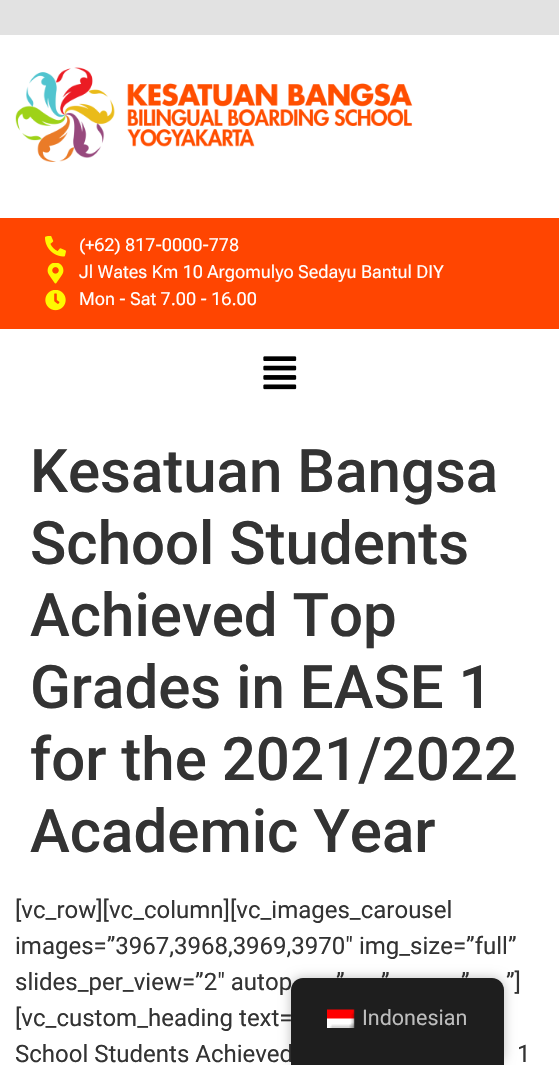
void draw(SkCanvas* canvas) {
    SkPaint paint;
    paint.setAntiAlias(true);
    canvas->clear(0xFFFFFFFF);
    paint.setColor(0xFFE2E2E2);
    canvas->drawRect(SkRect::MakeXYWH(0, 0, 559, 35), paint);
    canvas->drawImageRect(SkImages::DeferredFromEncodedData(SkData::MakeFromFileName("img1.png")), SkRect::MakeXYWH(15, 67, 398, 95), SkSamplingOptions());
    paint.setColor(0xFFFF4501);
    canvas->drawRect(SkRect::MakeXYWH(0, 218, 559, 111), paint);
    canvas->drawImageRect(SkImages::DeferredFromEncodedData(SkData::MakeFromFileName("img2.png")), SkRect::MakeXYWH(45, 236, 21, 21), SkSamplingOptions());
    SkFont font1(fontMgr->matchFamilyStyle("Roboto Flex", SkFontStyle::Normal()), 18);
    font1.setSubpixel(true);
    paint.setColor(0xFFFFFFFF);
    canvas->drawString("(+62) 817-0000-778", 79, 251, font1, paint);
    canvas->drawImageRect(SkImages::DeferredFromEncodedData(SkData::MakeFromFileName("img3.png")), SkRect::MakeXYWH(47, 263, 17, 21), SkSamplingOptions());
    canvas->drawString("Jl Wates Km 10 Argomulyo Sedayu Bantul DIY", 79, 278, font1, paint);
    canvas->drawImageRect(SkImages::DeferredFromEncodedData(SkData::MakeFromFileName("img4.png")), SkRect::MakeXYWH(45, 290, 21, 21), SkSamplingOptions());
    canvas->drawString("Mon - Sat 7.00 - 16.00", 79, 305, font1, paint);
    canvas->drawImageRect(SkImages::DeferredFromEncodedData(SkData::MakeFromFileName("img5.png")), SkRect::MakeXYWH(263, 356, 34, 34), SkSamplingOptions());
    SkFont font2(fontMgr->matchFamilyStyle("Roboto", SkFontStyle(500, SkFontStyle::kNormal_Width, SkFontStyle::kUpright_Slant)), 60);
    font2.setSubpixel(true);
    paint.setColor(0xFF333333);
    canvas->drawString("Kesatuan Bangsa", 30, 492, font2, paint);
    canvas->drawString("School Students", 30, 564, font2, paint);
    canvas->drawString("Achieved Top", 30, 636, font2, paint);
    canvas->drawString("Grades in EASE 1", 30, 708, font2, paint);
    canvas->drawString("for the 2021/2022", 30, 780, font2, paint);
    canvas->drawString("Academic Year", 30, 852, font2, paint);
    SkFont font3(fontMgr->matchFamilyStyle("Roboto", SkFontStyle::Normal()), 24);
    font3.setSubpixel(true);
    canvas->drawString("[vc_row][vc_column][vc_images_carousel", 15, 918, font3, paint);
    canvas->drawString("images=”3967,3968,3969,3970″ img_size=”full”", 15, 954, font3, paint);
    canvas->drawString("slides_per_view=”2″ autop", 15, 990, font3, paint);
    canvas->drawString("”", 336, 990, font3, paint);
    canvas->drawString("”", 381, 990, font3, paint);
    canvas->drawString("”", 461, 990, font3, paint);
    canvas->drawString("”]", 506, 990, font3, paint);
    canvas->drawString("[vc_custom_heading text=", 15, 1026, font3, paint);
    canvas->drawString("School Students Achieved", 15, 1062, font3, paint);
    canvas->drawString("1", 517, 1062, font3, paint);
    paint.setColor(0x40000000);
    paint.setMaskFilter(SkMaskFilter::MakeBlur(kNormal_SkBlurStyle, 6));
    canvas->drawRoundRect(SkRect::MakeXYWH(291, 978, 213, 87), 12, 12, paint);
    paint.setMaskFilter(nullptr);
    paint.setColor(0xFF1E1E1E);
    canvas->drawPath(SkPathBuilder().moveTo(303, 978).lineTo(492, 978).cubicTo(498.5f, 978, 504, 983.5f, 504, 990).lineTo(504, 1065).lineTo(291, 1065).lineTo(291, 990).cubicTo(291, 983.5f, 296.5f, 978, 303, 978).close().detach(), paint);
    canvas->drawImageRect(SkImages::DeferredFromEncodedData(SkData::MakeFromFileName("img6.png")), SkRect::MakeXYWH(327, 1009, 28, 19), SkSamplingOptions());
    SkFont font4(fontMgr->matchFamilyStyle("Roboto", SkFontStyle::Normal()), 21.5f);
    font4.setSubpixel(true);
    paint.setColor(0xFFBDBDBD);
    canvas->drawString("Indonesian", 362, 1025, font4, paint);
}
